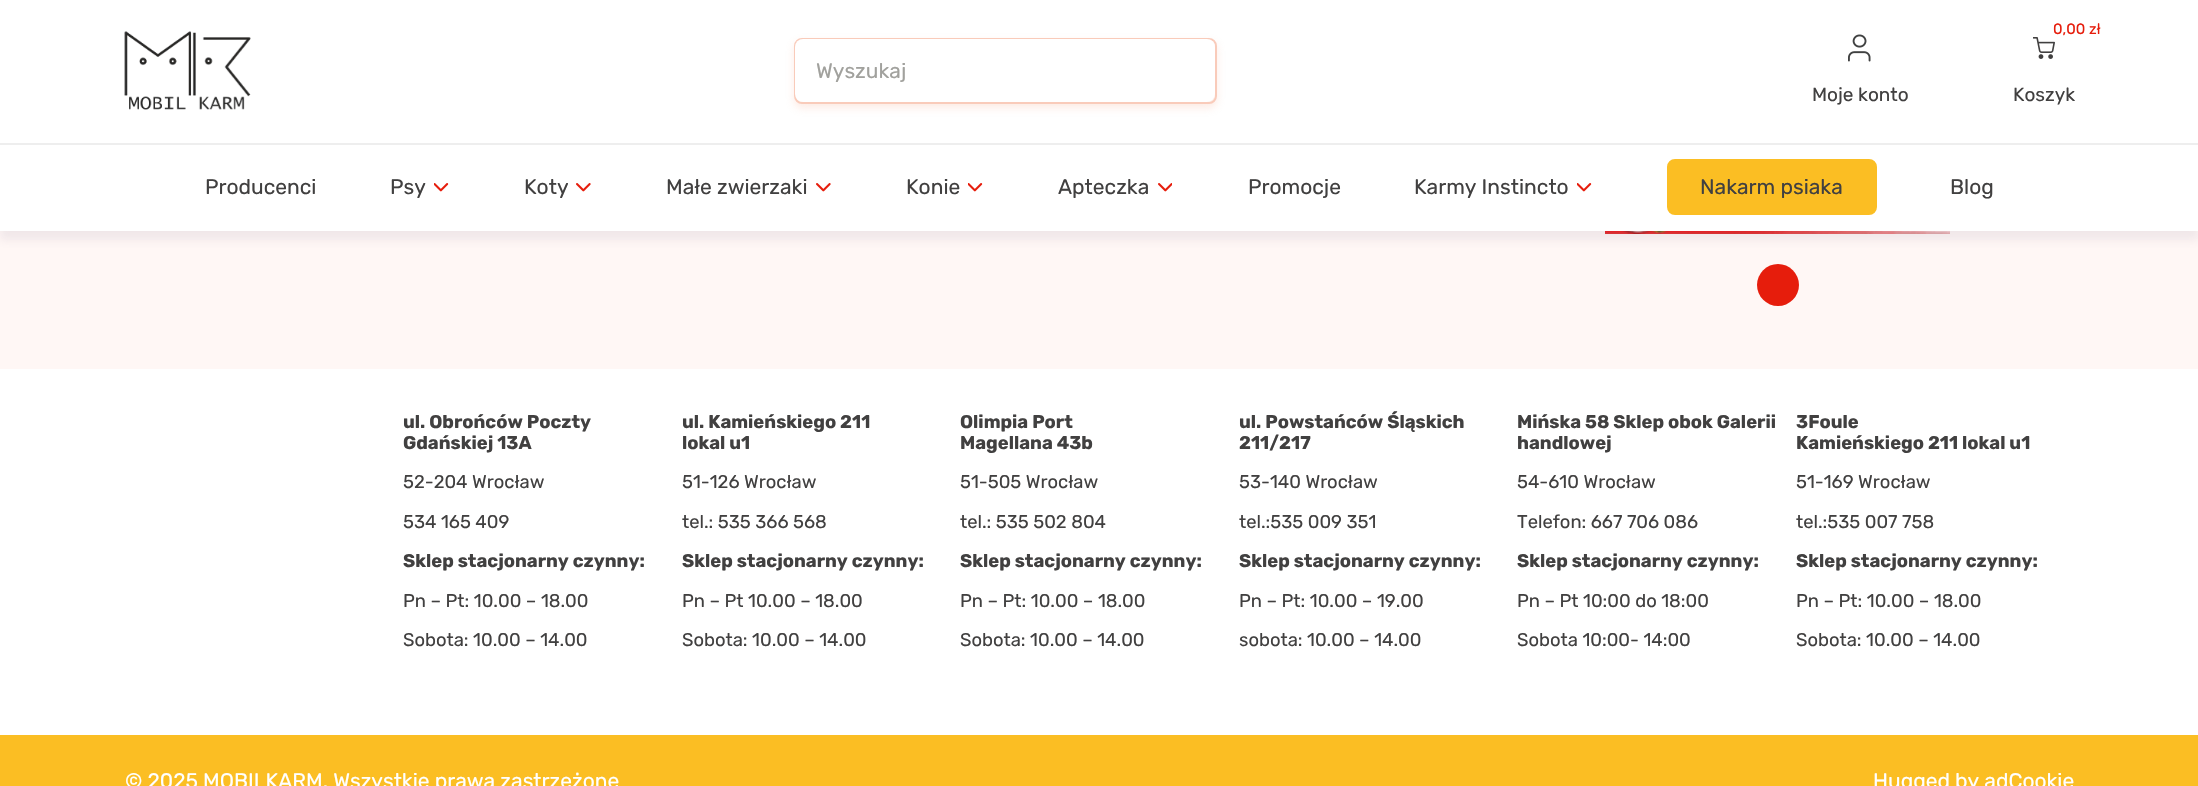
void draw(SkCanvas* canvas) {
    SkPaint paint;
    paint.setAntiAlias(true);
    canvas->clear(0xFFFFF7F5);
    canvas->drawImageRect(SkImages::DeferredFromEncodedData(SkData::MakeFromFileName("img7.png")), SkRect::MakeXYWH(1605, 231, 345, 3), SkSamplingOptions());
    paint.setColor(0x1A6C567B);
    paint.setMaskFilter(SkMaskFilter::MakeBlur(kNormal_SkBlurStyle, 4.5f));
    canvas->drawRect(SkRect::MakeXYWH(0, -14, 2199, 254), paint);
    paint.setMaskFilter(nullptr);
    paint.setColor(0xFFFFFFFF);
    canvas->drawRect(SkRect::MakeXYWH(0, 0, 2198, 231), paint);
    canvas->drawImageRect(SkImages::DeferredFromEncodedData(SkData::MakeFromFileName("img1.png")), SkRect::MakeXYWH(124, 31, 127, 79), SkSamplingOptions());
    paint.setColor(0x42F8B195);
    paint.setMaskFilter(SkMaskFilter::MakeBlur(kNormal_SkBlurStyle, 4.5f));
    canvas->drawRoundRect(SkRect::MakeXYWH(794, 42, 423, 66), 8, 8, paint);
    paint.setMaskFilter(nullptr);
    paint.setStyle(SkPaint::kStroke_Style);
    paint.setStrokeWidth(2);
    paint.setColor(0xFFF9CBBA);
    canvas->drawRoundRect(SkRect::MakeXYWH(795, 39, 421, 64), 7, 7, paint);
    canvas->save();
    canvas->clipPath(SkPathBuilder().moveTo(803, 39).lineTo(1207, 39).cubicTo(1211.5f, 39, 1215, 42.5f, 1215, 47).lineTo(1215, 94).cubicTo(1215, 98.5f, 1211.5f, 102, 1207, 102).lineTo(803, 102).cubicTo(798.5f, 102, 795, 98.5f, 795, 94).lineTo(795, 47).cubicTo(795, 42.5f, 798.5f, 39, 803, 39).close().detach(), true);
    paint.setStyle(SkPaint::kFill_Style);
    paint.setColor(0x29F8B195);
    paint.setMaskFilter(SkMaskFilter::MakeBlur(kNormal_SkBlurStyle, 4.5f));
    canvas->drawRoundRect(SkRect::MakeXYWH(795, 44, 420, 63), 8, 8, paint);
    paint.setMaskFilter(nullptr);
    canvas->restore();
    paint.setColor(0xFFFFFFFF);
    canvas->drawRoundRect(SkRect::MakeXYWH(795, 39, 420, 63), 8, 8, paint);
    SkFont font1(fontMgr->matchFamilyStyle("Rubik", SkFontStyle::Normal()), 21);
    font1.setSubpixel(true);
    paint.setColor(0xFFA1A19D);
    canvas->drawString("Wyszukaj", 816, 78, font1, paint);
    canvas->drawImageRect(SkImages::DeferredFromEncodedData(SkData::MakeFromFileName("img2.png")), SkRect::MakeXYWH(1848, 34, 23, 28), SkSamplingOptions());
    SkFont font2(fontMgr->matchFamilyStyle("Rubik", SkFontStyle::Normal()), 19);
    font2.setSubpixel(true);
    paint.setColor(0xFF414040);
    canvas->drawString("Moje konto", 1812, 101, font2, paint);
    SkFont font3(fontMgr->matchFamilyStyle("Rubik", SkFontStyle::Normal()), 15);
    font3.setSubpixel(true);
    paint.setColor(0xFFE61D0C);
    canvas->drawString("0,00 zł", 2053, 34, font3, paint);
    canvas->drawImageRect(SkImages::DeferredFromEncodedData(SkData::MakeFromFileName("img3.png")), SkRect::MakeXYWH(2033, 37, 22, 22), SkSamplingOptions());
    paint.setColor(0xFF414040);
    canvas->drawString("Koszyk", 2013, 101, font2, paint);
    paint.setColor(0xFFEEEEEE);
    canvas->drawRect(SkRect::MakeXYWH(0, 143, 2198, 2), paint);
    paint.setColor(0xFF414040);
    canvas->drawString("Producenci", 205, 194, font1, paint);
    canvas->drawString("Psy", 390, 194, font1, paint);
    canvas->drawImageRect(SkImages::DeferredFromEncodedData(SkData::MakeFromFileName("img4.png")), SkRect::MakeXYWH(434, 183, 15, 9), SkSamplingOptions());
    canvas->drawString("Koty", 524, 194, font1, paint);
    canvas->drawImageRect(SkImages::DeferredFromEncodedData(SkData::MakeFromFileName("img5.png")), SkRect::MakeXYWH(576, 183, 15, 9), SkSamplingOptions());
    canvas->drawString("Małe zwierzaki", 666, 194, font1, paint);
    canvas->drawImageRect(SkImages::DeferredFromEncodedData(SkData::MakeFromFileName("img5.png")), SkRect::MakeXYWH(816, 183, 15, 9), SkSamplingOptions());
    canvas->drawString("Konie", 906, 194, font1, paint);
    canvas->drawImageRect(SkImages::DeferredFromEncodedData(SkData::MakeFromFileName("img4.png")), SkRect::MakeXYWH(968, 183, 15, 9), SkSamplingOptions());
    canvas->drawString("Apteczka", 1058, 194, font1, paint);
    canvas->drawImageRect(SkImages::DeferredFromEncodedData(SkData::MakeFromFileName("img6.png")), SkRect::MakeXYWH(1158, 183, 14, 9), SkSamplingOptions());
    canvas->drawString("Promocje", 1248, 194, font1, paint);
    canvas->drawString("Karmy Instincto", 1414, 194, font1, paint);
    canvas->drawImageRect(SkImages::DeferredFromEncodedData(SkData::MakeFromFileName("img4.png")), SkRect::MakeXYWH(1577, 183, 15, 9), SkSamplingOptions());
    paint.setColor(0xFFFBBE23);
    canvas->drawRoundRect(SkRect::MakeXYWH(1668, 160, 208, 54), 7, 7, paint);
    paint.setStyle(SkPaint::kStroke_Style);
    canvas->drawRoundRect(SkRect::MakeXYWH(1668, 160, 208, 54), 7, 7, paint);
    paint.setStyle(SkPaint::kFill_Style);
    paint.setColor(0xFF414040);
    canvas->drawString("Nakarm psiaka", 1700, 194, font1, paint);
    canvas->drawString("Blog", 1950, 194, font1, paint);
    paint.setColor(0xFFE61D0C);
    canvas->drawCircle(1778, 285, 21, paint);
    paint.setColor(0xFFFFFFFF);
    canvas->drawRect(SkRect::MakeXYWH(0, 369, 2198, 366), paint);
    SkFont font4(fontMgr->matchFamilyStyle("Rubik", SkFontStyle::Bold()), 18.4f);
    font4.setSubpixel(true);
    paint.setColor(0xFF414040);
    canvas->drawString("ul. Obrońców Poczty", 403, 428, font4, paint);
    canvas->drawString("Gdańskiej 13A", 403, 449, font4, paint);
    SkFont font5(fontMgr->matchFamilyStyle("Rubik", SkFontStyle::Normal()), 18.4f);
    font5.setSubpixel(true);
    canvas->drawString("52-204 Wrocław", 403, 488, font5, paint);
    canvas->drawString("534 165 409", 403, 528, font5, paint);
    canvas->drawString("Sklep stacjonarny czynny:", 403, 567, font4, paint);
    canvas->drawString("Pn – Pt: 10.00 – 18.00", 403, 607, font5, paint);
    canvas->drawString("Sobota: 10.00 – 14.00", 403, 646, font5, paint);
    canvas->drawString("ul. Kamieńskiego 211", 682, 428, font4, paint);
    canvas->drawString("lokal u1", 682, 449, font4, paint);
    canvas->drawString("51-126 Wrocław", 682, 488, font5, paint);
    canvas->drawString("tel.: 535 366 568", 682, 528, font5, paint);
    canvas->drawString("Sklep stacjonarny czynny:", 682, 567, font4, paint);
    canvas->drawString("Pn – Pt 10.00 – 18.00", 682, 607, font5, paint);
    canvas->drawString("Sobota: 10.00 – 14.00", 682, 646, font5, paint);
    canvas->drawString("Olimpia Port", 960, 428, font4, paint);
    canvas->drawString("Magellana 43b", 960, 449, font4, paint);
    canvas->drawString("51-505 Wrocław", 960, 488, font5, paint);
    canvas->drawString("tel.: 535 502 804", 960, 528, font5, paint);
    canvas->drawString("Sklep stacjonarny czynny:", 960, 567, font4, paint);
    canvas->drawString("Pn – Pt: 10.00 – 18.00", 960, 607, font5, paint);
    canvas->drawString("Sobota: 10.00 – 14.00", 960, 646, font5, paint);
    canvas->drawString("ul. Powstańców Śląskich", 1239, 428, font4, paint);
    canvas->drawString("211/217", 1239, 449, font4, paint);
    canvas->drawString("53-140 Wrocław", 1239, 488, font5, paint);
    canvas->drawString("tel.:535 009 351", 1239, 528, font5, paint);
    canvas->drawString("Sklep stacjonarny czynny:", 1239, 567, font4, paint);
    canvas->drawString("Pn – Pt: 10.00 – 19.00", 1239, 607, font5, paint);
    canvas->drawString("sobota: 10.00 – 14.00", 1239, 646, font5, paint);
    canvas->drawString("Mińska 58 Sklep obok Galerii", 1517, 428, font4, paint);
    canvas->drawString("handlowej", 1517, 449, font4, paint);
    canvas->drawString("54-610 Wrocław", 1517, 488, font5, paint);
    canvas->drawString("Telefon: 667 706 086", 1517, 528, font5, paint);
    canvas->drawString("Sklep stacjonarny czynny:", 1517, 567, font4, paint);
    canvas->drawString("Pn – Pt 10:00 do 18:00", 1517, 607, font5, paint);
    canvas->drawString("Sobota 10:00- 14:00", 1517, 646, font5, paint);
    canvas->drawString("3Foule", 1796, 428, font4, paint);
    canvas->drawString("Kamieńskiego 211 lokal u1", 1796, 449, font4, paint);
    canvas->drawString("51-169 Wrocław", 1796, 488, font5, paint);
    canvas->drawString("tel.:535 007 758", 1796, 528, font5, paint);
    canvas->drawString("Sklep stacjonarny czynny:", 1796, 567, font4, paint);
    canvas->drawString("Pn – Pt: 10.00 – 18.00", 1796, 607, font5, paint);
    canvas->drawString("Sobota: 10.00 – 14.00", 1796, 646, font5, paint);
    paint.setColor(0xFFFBBE23);
    canvas->drawRect(SkRect::MakeXYWH(0, 735, 2198, 51), paint);
    paint.setColor(0xFFFFFFFF);
    canvas->drawString("© 2025 MOBILKARM. Wszystkie prawa zastrzeżone", 125, 788, font1, paint);
    canvas->drawString("Hugged by adCookie", 1873, 788, font1, paint);
}
